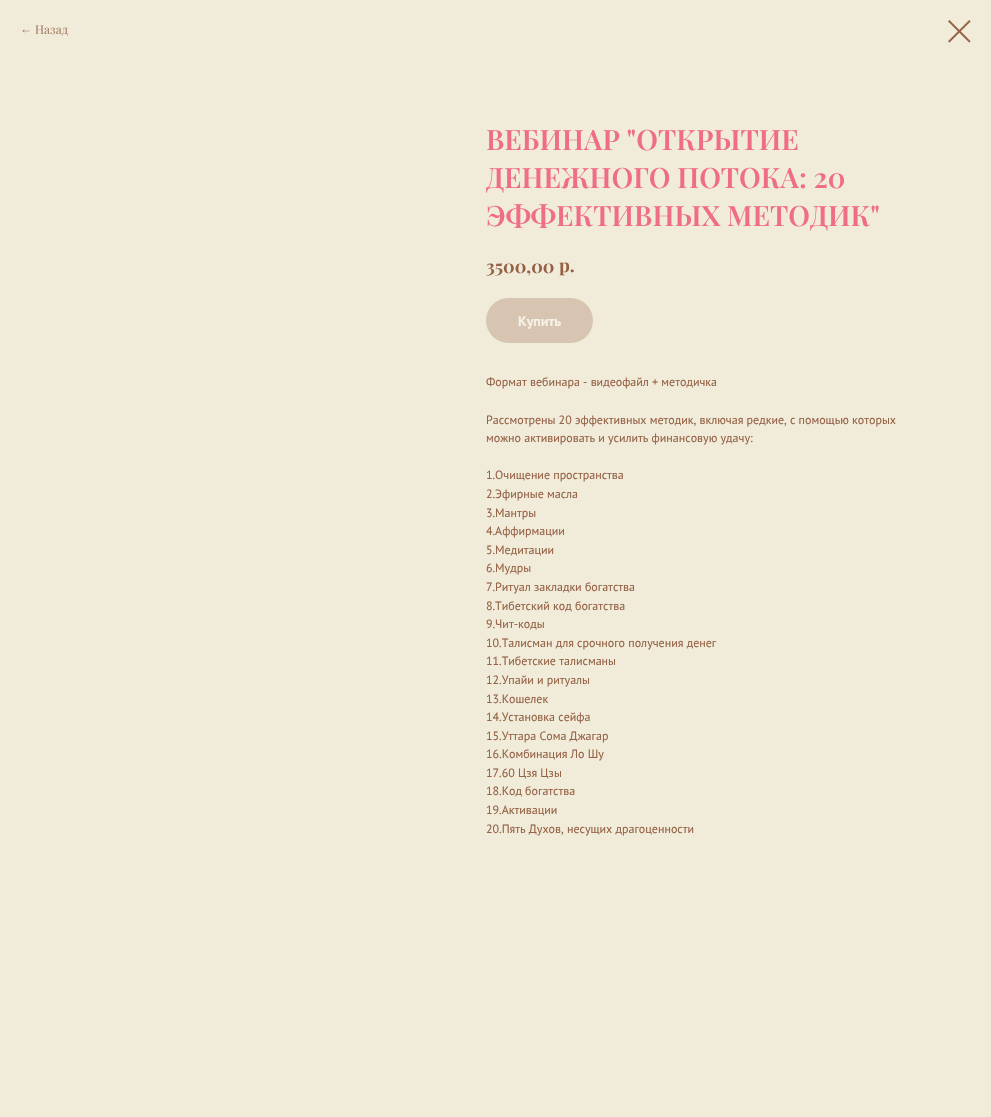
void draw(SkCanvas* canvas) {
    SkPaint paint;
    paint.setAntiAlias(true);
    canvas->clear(0xFFF1EBDA);
    SkFont font1(fontMgr->matchFamilyStyle("Liberation Sans", SkFontStyle::Normal()), 12);
    font1.setSubpixel(true);
    paint.setColor(0xFFA77D62);
    canvas->drawString("←", 20, 33, font1, paint);
    SkFont font2(fontMgr->matchFamilyStyle("Playfair Display", SkFontStyle::Normal()), 12);
    font2.setSubpixel(true);
    canvas->drawString("Назад", 35, 34, font2, paint);
    canvas->drawImageRect(SkImages::DeferredFromEncodedData(SkData::MakeFromFileName("img1.png")), SkRect::MakeXYWH(948, 20, 23, 23), SkSamplingOptions());
    SkFont font3(fontMgr->matchFamilyStyle("Playfair Display", SkFontStyle(600, SkFontStyle::kNormal_Width, SkFontStyle::kUpright_Slant)), 28);
    font3.setSubpixel(true);
    paint.setColor(0xFFF06D88);
    canvas->drawString("ВЕБИНАР \"ОТКРЫТИЕ", 486, 150, font3, paint);
    canvas->drawString("ДЕНЕЖНОГО ПОТОКА: 20", 486, 188, font3, paint);
    canvas->drawString("ЭФФЕКТИВНЫХ МЕТОДИК\"", 486, 226, font3, paint);
    SkFont font4(fontMgr->matchFamilyStyle("Playfair Display", SkFontStyle::Bold()), 18);
    font4.setSubpixel(true);
    paint.setColor(0xFF946144);
    canvas->drawString("3500,00", 486, 273, font4, paint);
    canvas->drawString("р.", 559, 272, font4, paint);
    paint.setColor(0xFFD7C4B1);
    canvas->drawRoundRect(SkRect::MakeXYWH(486, 298, 107, 45), 22.5f, 22.5f, paint);
    SkFont font5(fontMgr->matchFamilyStyle("PT Sans", SkFontStyle::Bold()), 14);
    font5.setSubpixel(true);
    paint.setColor(0xFFF6F2E7);
    canvas->drawString("Купить", 518, 326, font5, paint);
    SkFont font6(fontMgr->matchFamilyStyle("PT Sans", SkFontStyle::Normal()), 12);
    font6.setSubpixel(true);
    paint.setColor(0xFF946144);
    canvas->drawString("Формат вебинара - видеофайл + методичка", 486, 386, font6, paint);
    canvas->drawString("Рассмотрены 20 эффективных методик, включая редкие, с помощью которых", 486, 424, font6, paint);
    canvas->drawString("можно активировать и усилить финансовую удачу:", 486, 442, font6, paint);
    canvas->drawString("1.Очищение пространства", 486, 479, font6, paint);
    canvas->drawString("2.Эфирные масла", 486, 498, font6, paint);
    canvas->drawString("3.Мантры", 486, 517, font6, paint);
    canvas->drawString("4.Аффирмации", 486, 535, font6, paint);
    canvas->drawString("5.Медитации", 486, 554, font6, paint);
    canvas->drawString("6.Мудры", 486, 572, font6, paint);
    canvas->drawString("7.Ритуал закладки богатства", 486, 591, font6, paint);
    canvas->drawString("8.Тибетский код богатства", 486, 610, font6, paint);
    canvas->drawString("9.Чит-коды", 486, 628, font6, paint);
    canvas->drawString("10.Талисман для срочного получения денег", 486, 647, font6, paint);
    canvas->drawString("11.Тибетские талисманы", 486, 665, font6, paint);
    canvas->drawString("12.Упайи и ритуалы", 486, 684, font6, paint);
    canvas->drawString("13.Кошелек", 486, 703, font6, paint);
    canvas->drawString("14.Установка сейфа", 486, 721, font6, paint);
    canvas->drawString("15.Уттара Сома Джагар", 486, 740, font6, paint);
    canvas->drawString("16.Комбинация Ло Шу", 486, 758, font6, paint);
    canvas->drawString("17.60 Цзя Цзы", 486, 777, font6, paint);
    canvas->drawString("18.Код богатства", 486, 795, font6, paint);
    canvas->drawString("19.Активации", 486, 814, font6, paint);
    canvas->drawString("20.Пять Духов, несущих драгоценности", 486, 833, font6, paint);
}
